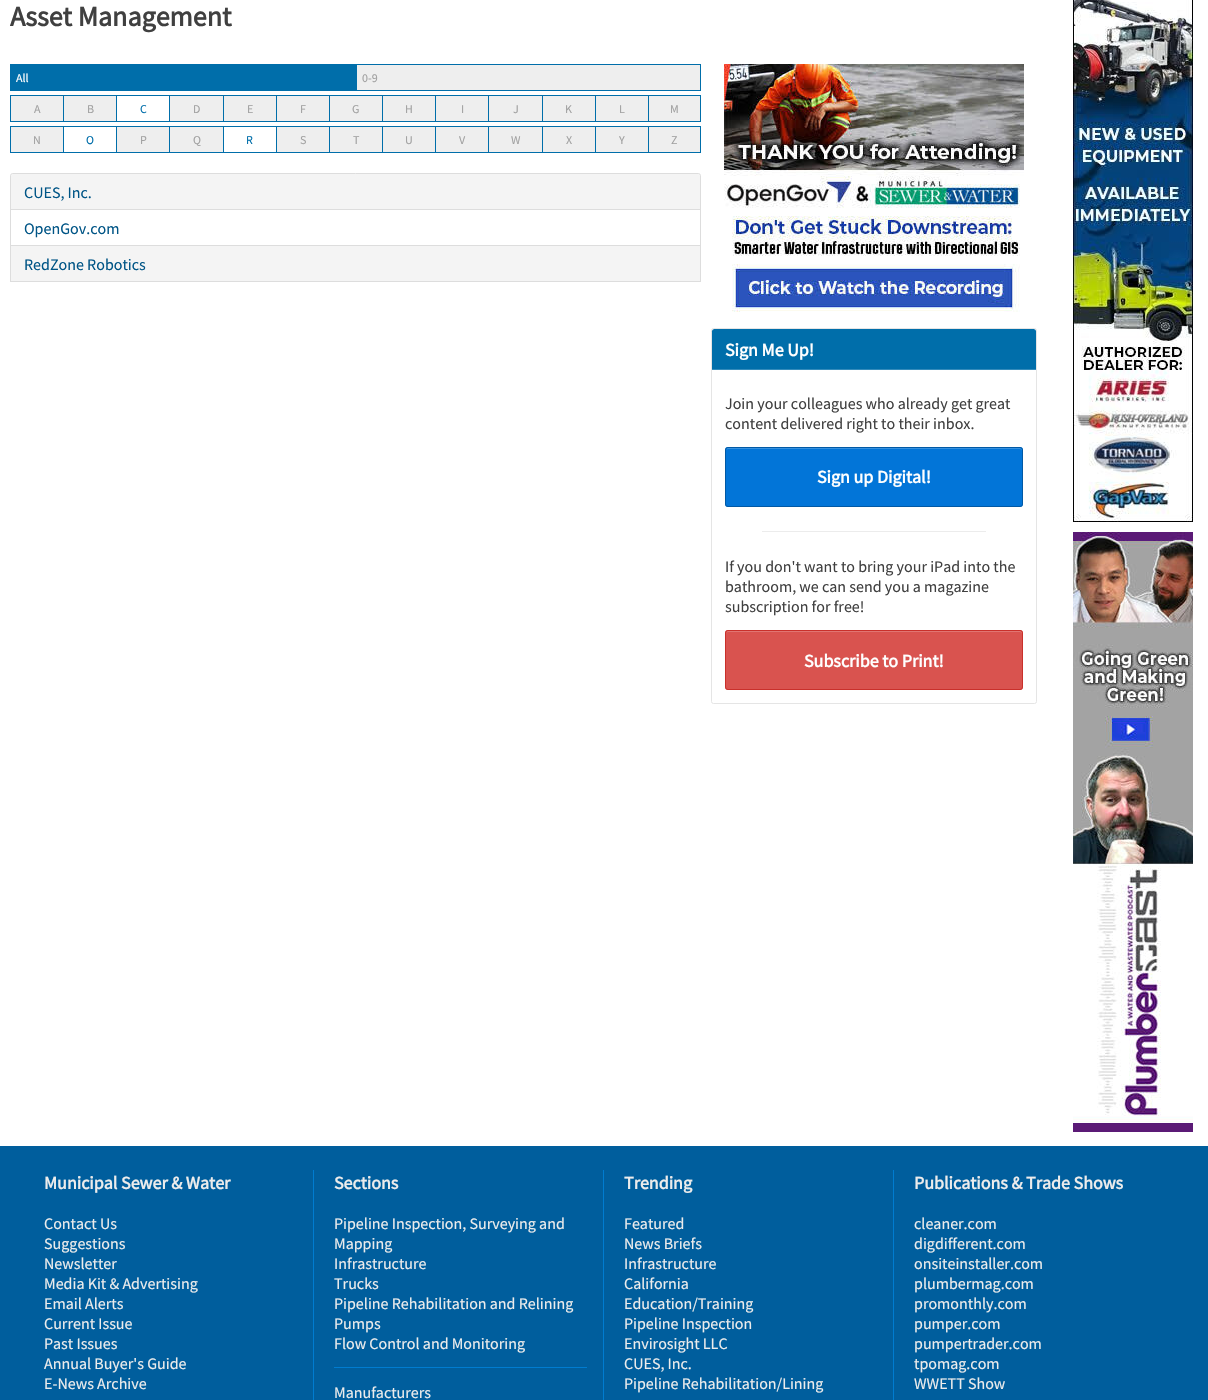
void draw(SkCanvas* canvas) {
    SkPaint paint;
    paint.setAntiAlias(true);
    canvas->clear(0xFFFFFFFF);
    SkFont font1(fontMgr->matchFamilyStyle("Source Sans Pro", SkFontStyle::Bold()), 28);
    font1.setSubpixel(true);
    paint.setColor(0xFF404040);
    canvas->drawString("Asset Management", 10, 26, font1, paint);
    paint.setColor(0xFF006EAA);
    canvas->drawRect(SkRect::MakeXYWH(10, 64, 346, 27), paint);
    SkFont font2(fontMgr->matchFamilyStyle("Source Sans Pro", SkFontStyle::Normal()), 12);
    font2.setSubpixel(true);
    paint.setColor(0xFFFFFFFF);
    canvas->drawString("All", 16, 82, font2, paint);
    paint.setColor(0xFFEEEEEE);
    canvas->drawRect(SkRect::MakeXYWH(356.5f, 64.5f, 344, 26), paint);
    paint.setStyle(SkPaint::kStroke_Style);
    paint.setStrokeWidth(1);
    paint.setColor(0xFF006EAA);
    canvas->drawRect(SkRect::MakeXYWH(356.5f, 64.5f, 344, 26), paint);
    paint.setStyle(SkPaint::kFill_Style);
    paint.setColor(0xFFA1A1A1);
    canvas->drawString("0-9", 362, 82, font2, paint);
    paint.setColor(0xFFEEEEEE);
    canvas->drawRect(SkRect::MakeXYWH(11, 96, 52, 25), paint);
    paint.setColor(0xFF006EAA);
    canvas->drawRect(SkRect::MakeXYWH(10, 95, 638, 1), paint);
    canvas->drawRect(SkRect::MakeXYWH(10, 121, 638, 1), paint);
    canvas->drawRect(SkRect::MakeXYWH(10, 95, 1, 27), paint);
    paint.setColor(0xFFA1A1A1);
    canvas->drawString("A", 34, 113, font2, paint);
    paint.setColor(0xFFEEEEEE);
    canvas->drawRect(SkRect::MakeXYWH(64, 96, 52, 25), paint);
    paint.setColor(0xFF006EAA);
    canvas->drawRect(SkRect::MakeXYWH(63, 95, 1, 27), paint);
    paint.setColor(0xFFA1A1A1);
    canvas->drawString("B", 87, 113, font2, paint);
    paint.setColor(0xFF006EAA);
    canvas->drawRect(SkRect::MakeXYWH(116, 95, 1, 27), paint);
    canvas->drawString("C", 140, 113, font2, paint);
    paint.setColor(0xFFEEEEEE);
    canvas->drawRect(SkRect::MakeXYWH(170, 96, 53, 25), paint);
    paint.setColor(0xFF006EAA);
    canvas->drawRect(SkRect::MakeXYWH(169, 95, 1, 27), paint);
    paint.setColor(0xFFA1A1A1);
    canvas->drawString("D", 193, 113, font2, paint);
    paint.setColor(0xFFEEEEEE);
    canvas->drawRect(SkRect::MakeXYWH(224, 96, 52, 25), paint);
    paint.setColor(0xFF006EAA);
    canvas->drawRect(SkRect::MakeXYWH(223, 95, 1, 27), paint);
    paint.setColor(0xFFA1A1A1);
    canvas->drawString("E", 247, 113, font2, paint);
    paint.setColor(0xFFEEEEEE);
    canvas->drawRect(SkRect::MakeXYWH(277, 96, 52, 25), paint);
    paint.setColor(0xFF006EAA);
    canvas->drawRect(SkRect::MakeXYWH(276, 95, 1, 27), paint);
    paint.setColor(0xFFA1A1A1);
    canvas->drawString("F", 300, 113, font2, paint);
    paint.setColor(0xFFEEEEEE);
    canvas->drawRect(SkRect::MakeXYWH(330, 96, 52, 25), paint);
    paint.setColor(0xFF006EAA);
    canvas->drawRect(SkRect::MakeXYWH(329, 95, 1, 27), paint);
    paint.setColor(0xFFA1A1A1);
    canvas->drawString("G", 352, 113, font2, paint);
    paint.setColor(0xFFEEEEEE);
    canvas->drawRect(SkRect::MakeXYWH(383, 96, 52, 25), paint);
    paint.setColor(0xFF006EAA);
    canvas->drawRect(SkRect::MakeXYWH(382, 95, 1, 27), paint);
    paint.setColor(0xFFA1A1A1);
    canvas->drawString("H", 405, 113, font2, paint);
    paint.setColor(0xFFEEEEEE);
    canvas->drawRect(SkRect::MakeXYWH(436, 96, 52, 25), paint);
    paint.setColor(0xFF006EAA);
    canvas->drawRect(SkRect::MakeXYWH(435, 95, 1, 27), paint);
    paint.setColor(0xFFA1A1A1);
    canvas->drawString("I", 461, 113, font2, paint);
    paint.setColor(0xFFEEEEEE);
    canvas->drawRect(SkRect::MakeXYWH(489, 96, 53, 25), paint);
    paint.setColor(0xFF006EAA);
    canvas->drawRect(SkRect::MakeXYWH(488, 95, 1, 27), paint);
    paint.setColor(0xFFA1A1A1);
    canvas->drawString("J", 513, 113, font2, paint);
    paint.setColor(0xFFEEEEEE);
    canvas->drawRect(SkRect::MakeXYWH(543, 96, 52, 25), paint);
    paint.setColor(0xFF006EAA);
    canvas->drawRect(SkRect::MakeXYWH(542, 95, 1, 27), paint);
    paint.setColor(0xFFA1A1A1);
    canvas->drawString("K", 565, 113, font2, paint);
    paint.setColor(0xFFEEEEEE);
    canvas->drawRect(SkRect::MakeXYWH(596, 96, 52, 25), paint);
    paint.setColor(0xFF006EAA);
    canvas->drawRect(SkRect::MakeXYWH(595, 95, 1, 27), paint);
    paint.setColor(0xFFA1A1A1);
    canvas->drawString("L", 619, 113, font2, paint);
    paint.setColor(0xFFEEEEEE);
    canvas->drawRect(SkRect::MakeXYWH(648.5f, 95.5f, 52, 26), paint);
    paint.setStyle(SkPaint::kStroke_Style);
    paint.setColor(0xFF006EAA);
    canvas->drawRect(SkRect::MakeXYWH(648.5f, 95.5f, 52, 26), paint);
    paint.setStyle(SkPaint::kFill_Style);
    paint.setColor(0xFFA1A1A1);
    canvas->drawString("M", 670, 113, font2, paint);
    paint.setColor(0xFFEEEEEE);
    canvas->drawRect(SkRect::MakeXYWH(11, 127, 52, 25), paint);
    paint.setColor(0xFF006EAA);
    canvas->drawRect(SkRect::MakeXYWH(10, 126, 638, 1), paint);
    canvas->drawRect(SkRect::MakeXYWH(10, 152, 638, 1), paint);
    canvas->drawRect(SkRect::MakeXYWH(10, 126, 1, 27), paint);
    paint.setColor(0xFFA1A1A1);
    canvas->drawString("N", 33, 144, font2, paint);
    paint.setColor(0xFF006EAA);
    canvas->drawRect(SkRect::MakeXYWH(63, 126, 1, 27), paint);
    canvas->drawString("O", 86, 144, font2, paint);
    paint.setColor(0xFFEEEEEE);
    canvas->drawRect(SkRect::MakeXYWH(117, 127, 52, 25), paint);
    paint.setColor(0xFF006EAA);
    canvas->drawRect(SkRect::MakeXYWH(116, 126, 1, 27), paint);
    paint.setColor(0xFFA1A1A1);
    canvas->drawString("P", 140, 144, font2, paint);
    paint.setColor(0xFFEEEEEE);
    canvas->drawRect(SkRect::MakeXYWH(170, 127, 53, 25), paint);
    paint.setColor(0xFF006EAA);
    canvas->drawRect(SkRect::MakeXYWH(169, 126, 1, 27), paint);
    paint.setColor(0xFFA1A1A1);
    canvas->drawString("Q", 193, 144, font2, paint);
    paint.setColor(0xFF006EAA);
    canvas->drawRect(SkRect::MakeXYWH(223, 126, 1, 27), paint);
    canvas->drawString("R", 246, 144, font2, paint);
    paint.setColor(0xFFEEEEEE);
    canvas->drawRect(SkRect::MakeXYWH(277, 127, 52, 25), paint);
    paint.setColor(0xFF006EAA);
    canvas->drawRect(SkRect::MakeXYWH(276, 126, 1, 27), paint);
    paint.setColor(0xFFA1A1A1);
    canvas->drawString("S", 300, 144, font2, paint);
    paint.setColor(0xFFEEEEEE);
    canvas->drawRect(SkRect::MakeXYWH(330, 127, 52, 25), paint);
    paint.setColor(0xFF006EAA);
    canvas->drawRect(SkRect::MakeXYWH(329, 126, 1, 27), paint);
    paint.setColor(0xFFA1A1A1);
    canvas->drawString("T", 353, 144, font2, paint);
    paint.setColor(0xFFEEEEEE);
    canvas->drawRect(SkRect::MakeXYWH(383, 127, 52, 25), paint);
    paint.setColor(0xFF006EAA);
    canvas->drawRect(SkRect::MakeXYWH(382, 126, 1, 27), paint);
    paint.setColor(0xFFA1A1A1);
    canvas->drawString("U", 405, 144, font2, paint);
    paint.setColor(0xFFEEEEEE);
    canvas->drawRect(SkRect::MakeXYWH(436, 127, 52, 25), paint);
    paint.setColor(0xFF006EAA);
    canvas->drawRect(SkRect::MakeXYWH(435, 126, 1, 27), paint);
    paint.setColor(0xFFA1A1A1);
    canvas->drawString("V", 459, 144, font2, paint);
    paint.setColor(0xFFEEEEEE);
    canvas->drawRect(SkRect::MakeXYWH(489, 127, 53, 25), paint);
    paint.setColor(0xFF006EAA);
    canvas->drawRect(SkRect::MakeXYWH(488, 126, 1, 27), paint);
    paint.setColor(0xFFA1A1A1);
    canvas->drawString("W", 511, 144, font2, paint);
    paint.setColor(0xFFEEEEEE);
    canvas->drawRect(SkRect::MakeXYWH(543, 127, 52, 25), paint);
    paint.setColor(0xFF006EAA);
    canvas->drawRect(SkRect::MakeXYWH(542, 126, 1, 27), paint);
    paint.setColor(0xFFA1A1A1);
    canvas->drawString("X", 566, 144, font2, paint);
    paint.setColor(0xFFEEEEEE);
    canvas->drawRect(SkRect::MakeXYWH(596, 127, 52, 25), paint);
    paint.setColor(0xFF006EAA);
    canvas->drawRect(SkRect::MakeXYWH(595, 126, 1, 27), paint);
    paint.setColor(0xFFA1A1A1);
    canvas->drawString("Y", 619, 144, font2, paint);
    paint.setColor(0xFFEEEEEE);
    canvas->drawRect(SkRect::MakeXYWH(648.5f, 126.5f, 52, 26), paint);
    paint.setStyle(SkPaint::kStroke_Style);
    paint.setColor(0xFF006EAA);
    canvas->drawRect(SkRect::MakeXYWH(648.5f, 126.5f, 52, 26), paint);
    paint.setStyle(SkPaint::kFill_Style);
    paint.setColor(0xFFA1A1A1);
    canvas->drawString("Z", 671, 144, font2, paint);
    paint.setColor(0xFFF4F4F4);
    canvas->drawPath(SkPathBuilder().moveTo(12.5f, 173.5f).lineTo(698.5f, 173.5f).cubicTo(699.5f, 173.5f, 700.5f, 174.5f, 700.5f, 175.5f).lineTo(700.5f, 209.5f).lineTo(10.5f, 209.5f).lineTo(10.5f, 175.5f).cubicTo(10.5f, 174.5f, 11.5f, 173.5f, 12.5f, 173.5f).close().detach(), paint);
    paint.setStyle(SkPaint::kStroke_Style);
    paint.setColor(0xFFDDDDDD);
    canvas->drawPath(SkPathBuilder().moveTo(12.5f, 173.5f).lineTo(698.5f, 173.5f).cubicTo(699.5f, 173.5f, 700.5f, 174.5f, 700.5f, 175.5f).lineTo(700.5f, 209.5f).lineTo(10.5f, 209.5f).lineTo(10.5f, 175.5f).cubicTo(10.5f, 174.5f, 11.5f, 173.5f, 12.5f, 173.5f).close().detach(), paint);
    SkFont font3(fontMgr->matchFamilyStyle("Source Sans Pro", SkFontStyle::Normal()), 16);
    font3.setSubpixel(true);
    paint.setStyle(SkPaint::kFill_Style);
    paint.setColor(0xFF005586);
    canvas->drawString("CUES, Inc.", 24, 198, font3, paint);
    paint.setStyle(SkPaint::kStroke_Style);
    paint.setColor(0xFFDDDDDD);
    canvas->drawRect(SkRect::MakeXYWH(10.5f, 209.5f, 690, 36), paint);
    paint.setStyle(SkPaint::kFill_Style);
    paint.setColor(0xFF005586);
    canvas->drawString("OpenGov.com", 24, 234, font3, paint);
    paint.setColor(0xFFF4F4F4);
    canvas->drawRect(SkRect::MakeXYWH(10.5f, 245.5f, 690, 36), paint);
    paint.setStyle(SkPaint::kStroke_Style);
    paint.setColor(0xFFDDDDDD);
    canvas->drawRect(SkRect::MakeXYWH(10.5f, 245.5f, 690, 36), paint);
    paint.setStyle(SkPaint::kFill_Style);
    paint.setColor(0xFF005586);
    canvas->drawString("RedZone Robotics", 24, 270, font3, paint);
    canvas->drawImageRect(SkImages::DeferredFromEncodedData(SkData::MakeFromFileName("img1.png")), SkRect::MakeXYWH(724, 64, 300, 248), SkSamplingOptions());
    paint.setStyle(SkPaint::kStroke_Style);
    paint.setColor(0xFFE5E5E5);
    canvas->drawRoundRect(SkRect::MakeXYWH(711.5f, 328.5f, 325, 375), 2, 2, paint);
    paint.setStyle(SkPaint::kFill_Style);
    paint.setColor(0xFF006EAA);
    canvas->drawPath(SkPathBuilder().moveTo(714.5f, 329).lineTo(1033.5f, 329).cubicTo(1035, 329, 1036, 330, 1036, 331.5f).lineTo(1036, 370).lineTo(712, 370).lineTo(712, 331.5f).cubicTo(712, 330, 713, 329, 714.5f, 329).close().detach(), paint);
    paint.setColor(0xFF338BBB);
    canvas->drawRect(SkRect::MakeXYWH(712, 369, 324, 1), paint);
    SkFont font4(fontMgr->matchFamilyStyle("Source Sans Pro", SkFontStyle::Bold()), 18);
    font4.setSubpixel(true);
    paint.setColor(0xFFFFFFFF);
    canvas->drawString("Sign Me Up!", 725, 356, font4, paint);
    paint.setColor(0xFF404040);
    canvas->drawString("Join your colleagues who already get great", 725, 409, font3, paint);
    canvas->drawString("content delivered right to their inbox.", 725, 429, font3, paint);
    paint.setColor(0xFF0275D8);
    canvas->drawRoundRect(SkRect::MakeXYWH(725, 447, 298, 60), 3, 3, paint);
    paint.setColor(0xFF3591E0);
    canvas->drawPath(SkPathBuilder().moveTo(728, 449).lineTo(1020, 449).cubicTo(1021, 449, 1022, 450, 1022, 451).cubicTo(1022, 450, 1022, 448, 1020, 448).lineTo(727, 448).lineTo(726, 451).cubicTo(726, 450, 727, 449, 728, 449).close().detach(), paint);
    paint.setStyle(SkPaint::kStroke_Style);
    paint.setColor(0xFF0159A5);
    canvas->drawRoundRect(SkRect::MakeXYWH(725.5f, 447.5f, 297, 59), 2.5f, 2.5f, paint);
    paint.setStyle(SkPaint::kFill_Style);
    paint.setColor(0xFFFFFFFF);
    canvas->drawString("Sign up Digital!", 817, 483, font4, paint);
    paint.setColor(0xFFECECEC);
    canvas->drawRect(SkRect::MakeXYWH(762, 531, 224, 1), paint);
    paint.setColor(0xFF404040);
    canvas->drawString("If you don't want to bring your iPad into the", 725, 572, font3, paint);
    canvas->drawString("bathroom, we can send you a magazine", 725, 592, font3, paint);
    canvas->drawString("subscription for free!", 725, 612, font3, paint);
    paint.setColor(0xFFD9534F);
    canvas->drawRoundRect(SkRect::MakeXYWH(725, 630, 298, 60), 3, 3, paint);
    paint.setColor(0xFFE17572);
    canvas->drawPath(SkPathBuilder().moveTo(728, 632).lineTo(1020, 632).cubicTo(1021, 632, 1022, 633, 1022, 634).cubicTo(1022, 633, 1022, 631, 1020, 631).lineTo(727, 631).lineTo(726, 634).cubicTo(726, 633, 727, 632, 728, 632).close().detach(), paint);
    paint.setStyle(SkPaint::kStroke_Style);
    paint.setColor(0xFFC9302B);
    canvas->drawRoundRect(SkRect::MakeXYWH(725.5f, 630.5f, 297, 59), 2.5f, 2.5f, paint);
    paint.setStyle(SkPaint::kFill_Style);
    paint.setColor(0xFFFFFFFF);
    canvas->drawString("Subscribe to Print!", 804, 667, font4, paint);
    canvas->drawImageRect(SkImages::DeferredFromEncodedData(SkData::MakeFromFileName("img2.png")), SkRect::MakeXYWH(1073, 0, 120, 522), SkSamplingOptions());
    canvas->drawImageRect(SkImages::DeferredFromEncodedData(SkData::MakeFromFileName("img3.png")), SkRect::MakeXYWH(1073, 532, 120, 600), SkSamplingOptions());
    paint.setColor(0xFF005E9D);
    canvas->drawRect(SkRect::MakeXYWH(0, 1146, 1208, 254), paint);
    paint.setColor(0xFF007CD0);
    canvas->drawRect(SkRect::MakeXYWH(313, 1170, 1, 230), paint);
    paint.setColor(0xFFECECEC);
    canvas->drawString("Municipal Sewer & Water", 44, 1189, font4, paint);
    canvas->drawString("Contact Us", 44, 1229, font3, paint);
    canvas->drawString("Suggestions", 44, 1249, font3, paint);
    canvas->drawString("Newsletter", 44, 1269, font3, paint);
    canvas->drawString("Media Kit & Advertising", 44, 1289, font3, paint);
    canvas->drawString("Email Alerts", 44, 1309, font3, paint);
    canvas->drawString("Current Issue", 44, 1329, font3, paint);
    canvas->drawString("Past Issues", 44, 1349, font3, paint);
    canvas->drawString("Annual Buyer's Guide", 44, 1369, font3, paint);
    canvas->drawString("E-News Archive", 44, 1389, font3, paint);
    paint.setColor(0xFF007CD0);
    canvas->drawRect(SkRect::MakeXYWH(603, 1170, 1, 230), paint);
    paint.setColor(0xFFECECEC);
    canvas->drawString("Sections", 334, 1189, font4, paint);
    canvas->drawString("Pipeline Inspection, Surveying and", 334, 1229, font3, paint);
    canvas->drawString("Mapping", 334, 1249, font3, paint);
    canvas->drawString("Infrastructure", 334, 1269, font3, paint);
    canvas->drawString("Trucks", 334, 1289, font3, paint);
    canvas->drawString("Pipeline Rehabilitation and Relining", 334, 1309, font3, paint);
    canvas->drawString("Pumps", 334, 1329, font3, paint);
    canvas->drawString("Flow Control and Monitoring", 334, 1349, font3, paint);
    paint.setColor(0xFF007CD0);
    canvas->drawRect(SkRect::MakeXYWH(334, 1367, 253, 1), paint);
    paint.setColor(0xFFECECEC);
    canvas->drawString("Manufacturers", 334, 1398, font3, paint);
    paint.setColor(0xFF007CD0);
    canvas->drawRect(SkRect::MakeXYWH(893, 1170, 1, 230), paint);
    paint.setColor(0xFFECECEC);
    canvas->drawString("Trending", 624, 1189, font4, paint);
    canvas->drawString("Featured", 624, 1229, font3, paint);
    canvas->drawString("News Briefs", 624, 1249, font3, paint);
    canvas->drawString("Infrastructure", 624, 1269, font3, paint);
    canvas->drawString("California", 624, 1289, font3, paint);
    canvas->drawString("Education/Training", 624, 1309, font3, paint);
    canvas->drawString("Pipeline Inspection", 624, 1329, font3, paint);
    canvas->drawString("Envirosight LLC", 624, 1349, font3, paint);
    canvas->drawString("CUES, Inc.", 624, 1369, font3, paint);
    canvas->drawString("Pipeline Rehabilitation/Lining", 624, 1389, font3, paint);
    canvas->drawString("Publications & Trade Shows", 914, 1189, font4, paint);
    canvas->drawString("cleaner.com", 914, 1229, font3, paint);
    canvas->drawString("digdifferent.com", 914, 1249, font3, paint);
    canvas->drawString("onsiteinstaller.com", 914, 1269, font3, paint);
    canvas->drawString("plumbermag.com", 914, 1289, font3, paint);
    canvas->drawString("promonthly.com", 914, 1309, font3, paint);
    canvas->drawString("pumper.com", 914, 1329, font3, paint);
    canvas->drawString("pumpertrader.com", 914, 1349, font3, paint);
    canvas->drawString("tpomag.com", 914, 1369, font3, paint);
    canvas->drawString("WWETT Show", 914, 1389, font3, paint);
}
